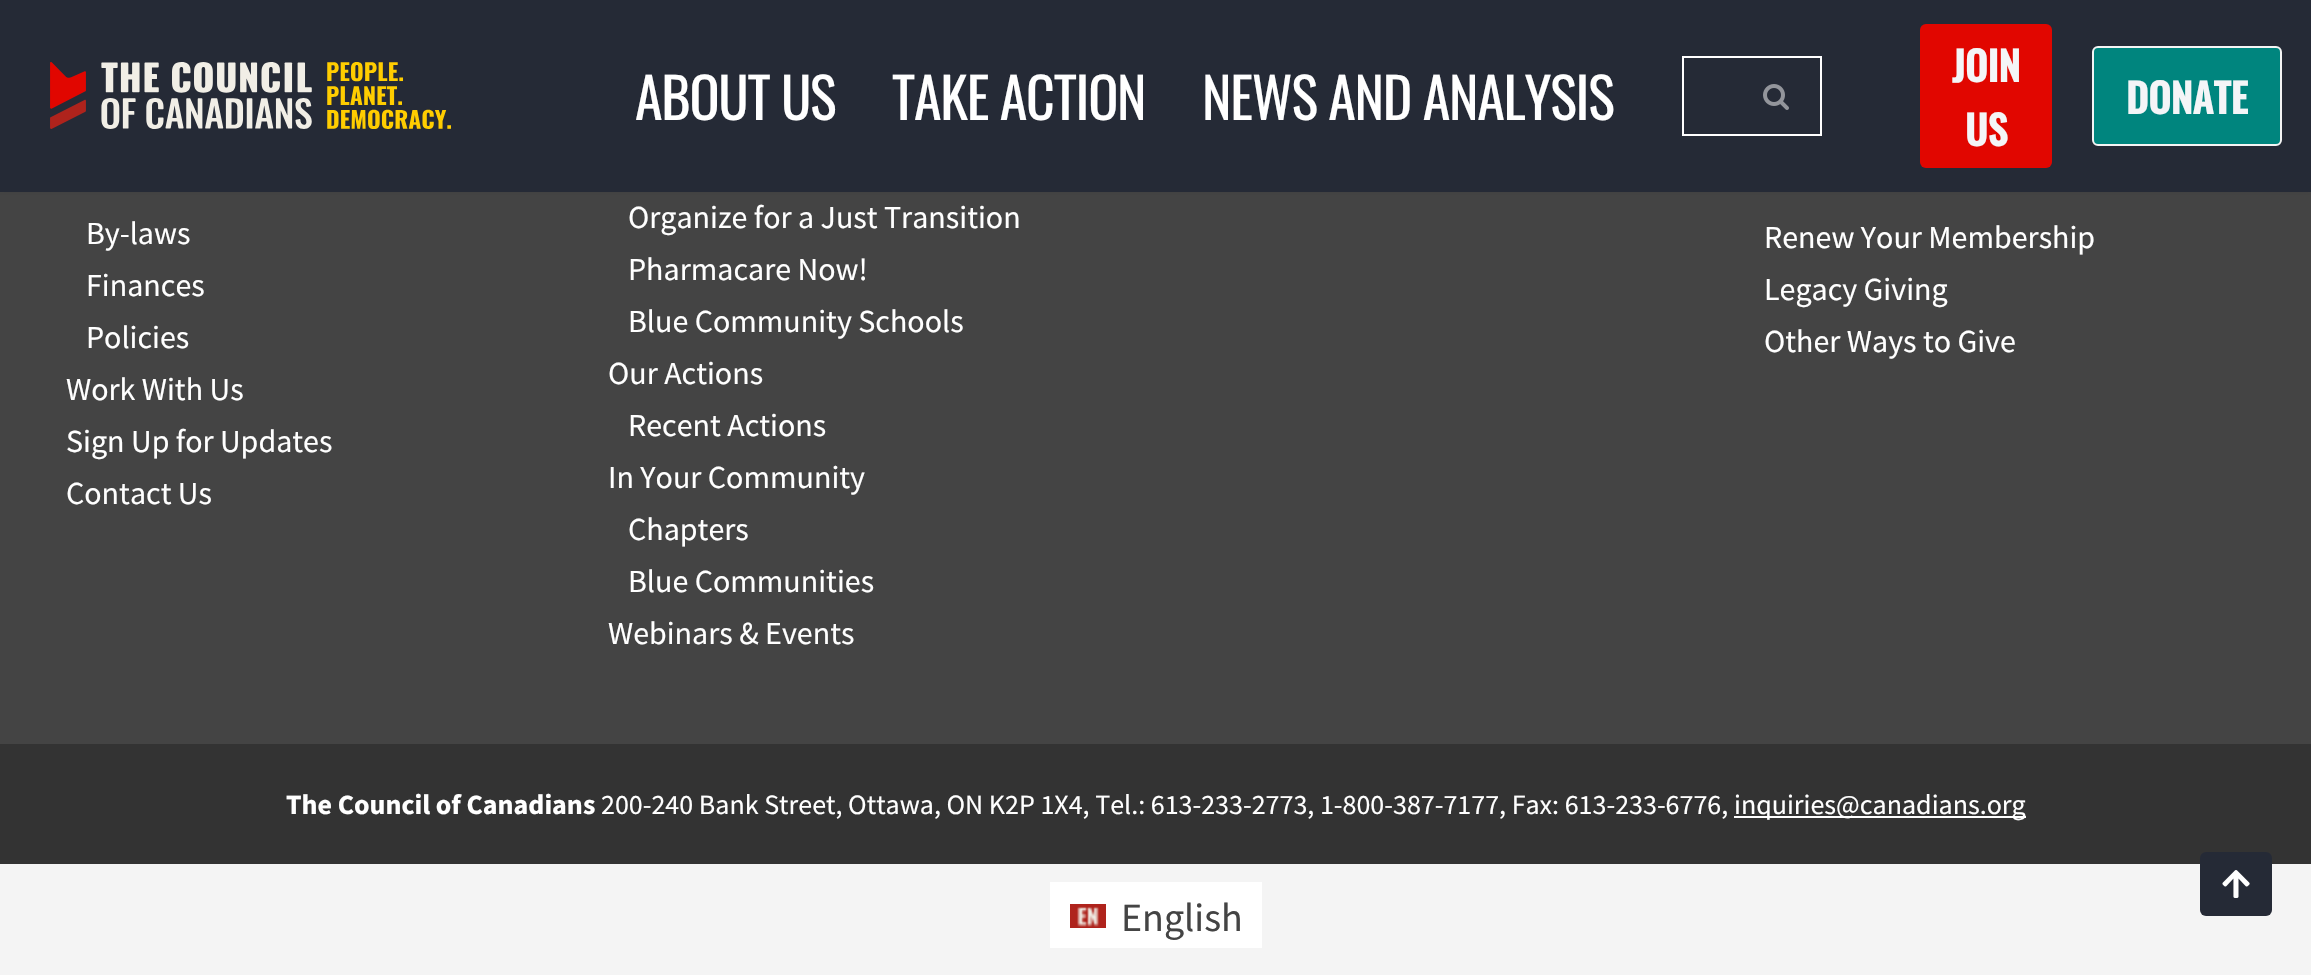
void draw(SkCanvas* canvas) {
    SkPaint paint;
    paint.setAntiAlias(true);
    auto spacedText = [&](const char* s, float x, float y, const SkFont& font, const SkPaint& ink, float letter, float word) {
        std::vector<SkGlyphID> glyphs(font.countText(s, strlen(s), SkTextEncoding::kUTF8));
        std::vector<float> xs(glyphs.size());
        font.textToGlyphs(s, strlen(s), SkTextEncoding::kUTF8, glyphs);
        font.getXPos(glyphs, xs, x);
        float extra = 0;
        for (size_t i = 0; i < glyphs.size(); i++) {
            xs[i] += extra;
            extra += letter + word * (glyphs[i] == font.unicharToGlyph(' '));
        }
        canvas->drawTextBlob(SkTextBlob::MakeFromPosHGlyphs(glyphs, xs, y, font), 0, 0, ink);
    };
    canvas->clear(0xFFF4F4F4);
    paint.setColor(0xFF444444);
    canvas->drawRect(SkRect::MakeXYWH(0, 192, 2311, 552), paint);
    paint.setColor(0x1A000000);
    paint.setMaskFilter(SkMaskFilter::MakeBlur(kNormal_SkBlurStyle, 3));
    canvas->drawRect(SkRect::MakeXYWH(0, -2, 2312, 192), paint);
    paint.setMaskFilter(nullptr);
    paint.setColor(0xFF252A36);
    canvas->drawRect(SkRect::MakeXYWH(0, 0, 2311, 192), paint);
    canvas->drawImageRect(SkImages::DeferredFromEncodedData(SkData::MakeFromFileName("img1.png")), SkRect::MakeXYWH(50, 62, 401, 67), SkSamplingOptions());
    SkFont font1(fontMgr->matchFamilyStyle("Oswald", SkFontStyle::Normal()), 56);
    font1.setSubpixel(true);
    paint.setColor(0xFFFFFFFF);
    spacedText("ABOUT US", 635, 120, font1, paint, -1.25f, 0);
    spacedText("TAKE ACTION", 892, 120, font1, paint, -1.25f, 0);
    spacedText("NEWS AND ANALYSIS", 1202, 120, font1, paint, -1.25f, 0);
    canvas->drawRect(SkRect::MakeXYWH(1682, 56, 140, 2), paint);
    canvas->drawRect(SkRect::MakeXYWH(1682, 134, 50, 2), paint);
    canvas->drawRect(SkRect::MakeXYWH(1682, 56, 2, 80), paint);
    canvas->drawRect(SkRect::MakeXYWH(1820, 56, 2, 80), paint);
    canvas->drawRect(SkRect::MakeXYWH(1732, 134, 90, 2), paint);
    canvas->drawImageRect(SkImages::DeferredFromEncodedData(SkData::MakeFromFileName("img2.png")), SkRect::MakeXYWH(1763, 84, 26, 26), SkSamplingOptions());
    paint.setColor(0xFFE10600);
    canvas->drawRoundRect(SkRect::MakeXYWH(1920, 24, 132, 144), 6, 6, paint);
    SkFont font2(fontMgr->matchFamilyStyle("Oswald", SkFontStyle::Bold()), 40);
    font2.setSubpixel(true);
    paint.setColor(0xFFF4F5F7);
    canvas->drawString("JOIN", 1952, 82, font2, paint);
    canvas->drawString("US", 1965, 146, font2, paint);
    paint.setColor(0xFF00857E);
    canvas->drawRoundRect(SkRect::MakeXYWH(2093, 47, 188, 98), 5, 5, paint);
    paint.setStyle(SkPaint::kStroke_Style);
    paint.setStrokeWidth(2);
    paint.setColor(0xFFF4F4F4);
    canvas->drawRoundRect(SkRect::MakeXYWH(2093, 47, 188, 98), 5, 5, paint);
    paint.setStyle(SkPaint::kFill_Style);
    paint.setColor(0xFFF4F5F7);
    canvas->drawString("DONATE", 2126, 114, font2, paint);
    SkFont font3(fontMgr->matchFamilyStyle("Source Sans Pro", SkFontStyle::Normal()), 32);
    font3.setSubpixel(true);
    paint.setColor(0xFFFFFFFF);
    canvas->drawString("By-laws", 86, 244, font3, paint);
    canvas->drawString("Finances", 86, 296, font3, paint);
    canvas->drawString("Policies", 86, 348, font3, paint);
    canvas->drawString("Work With Us", 66, 400, font3, paint);
    canvas->drawString("Sign Up for Updates", 66, 452, font3, paint);
    canvas->drawString("Contact Us", 66, 504, font3, paint);
    canvas->drawString("Organize for a Just Transition", 628, 228, font3, paint);
    canvas->drawString("Pharmacare Now!", 628, 280, font3, paint);
    canvas->drawString("Blue Community Schools", 628, 332, font3, paint);
    canvas->drawString("Our Actions", 608, 384, font3, paint);
    canvas->drawString("Recent Actions", 628, 436, font3, paint);
    canvas->drawString("In Your Community", 608, 488, font3, paint);
    canvas->drawString("Chapters", 628, 540, font3, paint);
    canvas->drawString("Blue Communities", 628, 592, font3, paint);
    canvas->drawString("Webinars & Events", 608, 644, font3, paint);
    canvas->drawString("Renew Your Membership", 1764, 248, font3, paint);
    canvas->drawString("Legacy Giving", 1764, 300, font3, paint);
    canvas->drawString("Other Ways to Give", 1764, 352, font3, paint);
    paint.setColor(0xFF333333);
    canvas->drawRect(SkRect::MakeXYWH(0, 744, 2311, 120), paint);
    SkFont font4(fontMgr->matchFamilyStyle("Source Sans Pro", SkFontStyle::Bold()), 28);
    font4.setSubpixel(true);
    paint.setColor(0xFFFFFFFF);
    canvas->drawString("The Council of Canadians", 286, 814, font4, paint);
    SkFont font5(fontMgr->matchFamilyStyle("Source Sans Pro", SkFontStyle::Normal()), 28);
    font5.setSubpixel(true);
    canvas->drawString("200-240 Bank Street, Ottawa, ON K2P 1X4, Tel.: 613-233-2773, 1-800-387-7177, Fax: 613-233-6776,", 601, 814, font5, paint);
    canvas->drawRect(SkRect::MakeXYWH(1734, 816, 292, 2), paint);
    canvas->drawString("inquiries@canadians.org", 1734, 814, font5, paint);
    paint.setColor(0xFF252A36);
    canvas->drawRoundRect(SkRect::MakeXYWH(2200, 852, 72, 64), 6, 6, paint);
    canvas->drawImageRect(SkImages::DeferredFromEncodedData(SkData::MakeFromFileName("img3.png")), SkRect::MakeXYWH(2222, 870, 28, 28), SkSamplingOptions());
    paint.setColor(0xFFFFFFFF);
    canvas->drawRect(SkRect::MakeXYWH(1050, 882, 212, 66), paint);
    canvas->drawImageRect(SkImages::DeferredFromEncodedData(SkData::MakeFromFileName("img4.png")), SkRect::MakeXYWH(1070, 904, 36, 24), SkSamplingOptions());
    SkFont font6(fontMgr->matchFamilyStyle("Source Sans Pro", SkFontStyle::Normal()), 40);
    font6.setSubpixel(true);
    paint.setColor(0xFF444444);
    canvas->drawString("English", 1121, 931, font6, paint);
}
